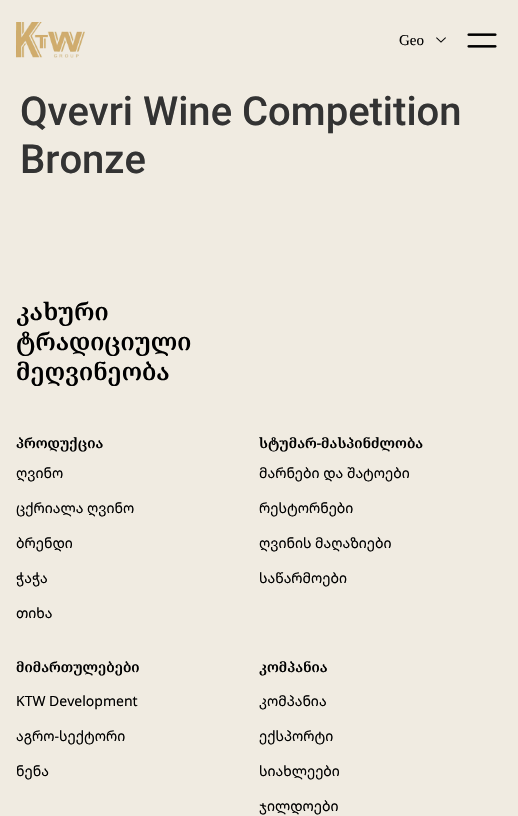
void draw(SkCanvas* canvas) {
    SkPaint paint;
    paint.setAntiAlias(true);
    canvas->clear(0xFFF0EBE1);
    canvas->drawImageRect(SkImages::DeferredFromEncodedData(SkData::MakeFromFileName("img1.png")), SkRect::MakeXYWH(16, 22, 69, 36), SkSamplingOptions());
    SkFont font1(fontMgr->matchFamilyStyle("Liberation Serif", SkFontStyle::Normal()), 15);
    font1.setSubpixel(true);
    paint.setColor(0xFF000000);
    canvas->drawString("Geo", 399, 45, font1, paint);
    canvas->drawImageRect(SkImages::DeferredFromEncodedData(SkData::MakeFromFileName("img2.png")), SkRect::MakeXYWH(436, 37, 10, 6), SkSamplingOptions());
    canvas->drawImageRect(SkImages::DeferredFromEncodedData(SkData::MakeFromFileName("img3.png")), SkRect::MakeXYWH(467, 33, 30, 15), SkSamplingOptions());
    SkFont font2(fontMgr->matchFamilyStyle("Roboto", SkFontStyle(500, SkFontStyle::kNormal_Width, SkFontStyle::kUpright_Slant)), 40);
    font2.setSubpixel(true);
    paint.setColor(0xFF333333);
    canvas->drawString("Qvevri Wine Competition", 20, 125, font2, paint);
    canvas->drawString("Bronze", 20, 173, font2, paint);
    SkFont font3(fontMgr->matchFamilyStyle("Noto Serif Georgian", SkFontStyle(600, SkFontStyle::kNormal_Width, SkFontStyle::kUpright_Slant)), 24);
    font3.setSubpixel(true);
    paint.setColor(0xFF000000);
    canvas->drawString("კახური", 16, 320, font3, paint);
    canvas->drawString("ტრადიციული", 16, 350, font3, paint);
    canvas->drawString("მეღვინეობა", 16, 380, font3, paint);
    SkFont font4(fontMgr->matchFamilyStyle("Noto Serif Georgian", SkFontStyle(600, SkFontStyle::kNormal_Width, SkFontStyle::kUpright_Slant)), 14);
    font4.setSubpixel(true);
    canvas->drawString("პროდუქცია", 16, 448, font4, paint);
    SkFont font5(fontMgr->matchFamilyStyle("Noto Sans Georgian", SkFontStyle::Normal()), 14);
    font5.setSubpixel(true);
    canvas->drawString("ღვინო", 16, 478, font5, paint);
    canvas->drawString("ცქრიალა ღვინო", 16, 513, font5, paint);
    canvas->drawString("ბრენდი", 16, 548, font5, paint);
    canvas->drawString("ჭაჭა", 16, 583, font5, paint);
    canvas->drawString("თიხა", 16, 618, font5, paint);
    canvas->drawString("სტუმარ-მასპინძლობა", 259, 448, font4, paint);
    canvas->drawString("მარნები და შატოები", 259, 478, font5, paint);
    canvas->drawString("რესტორნები", 259, 513, font5, paint);
    canvas->drawString("ღვინის მაღაზიები", 259, 548, font5, paint);
    canvas->drawString("საწარმოები", 259, 583, font5, paint);
    canvas->drawString("მიმართულებები", 16, 672, font4, paint);
    canvas->drawString("KTW Development", 16, 706, font5, paint);
    canvas->drawString("აგრო-სექტორი", 16, 741, font5, paint);
    canvas->drawString("ნენა", 16, 776, font5, paint);
    canvas->drawString("კომპანია", 259, 672, font4, paint);
    canvas->drawString("კომპანია", 259, 706, font5, paint);
    canvas->drawString("ექსპორტი", 259, 741, font5, paint);
    canvas->drawString("სიახლეები", 259, 776, font5, paint);
    canvas->drawString("ჯილდოები", 259, 811, font5, paint);
}
